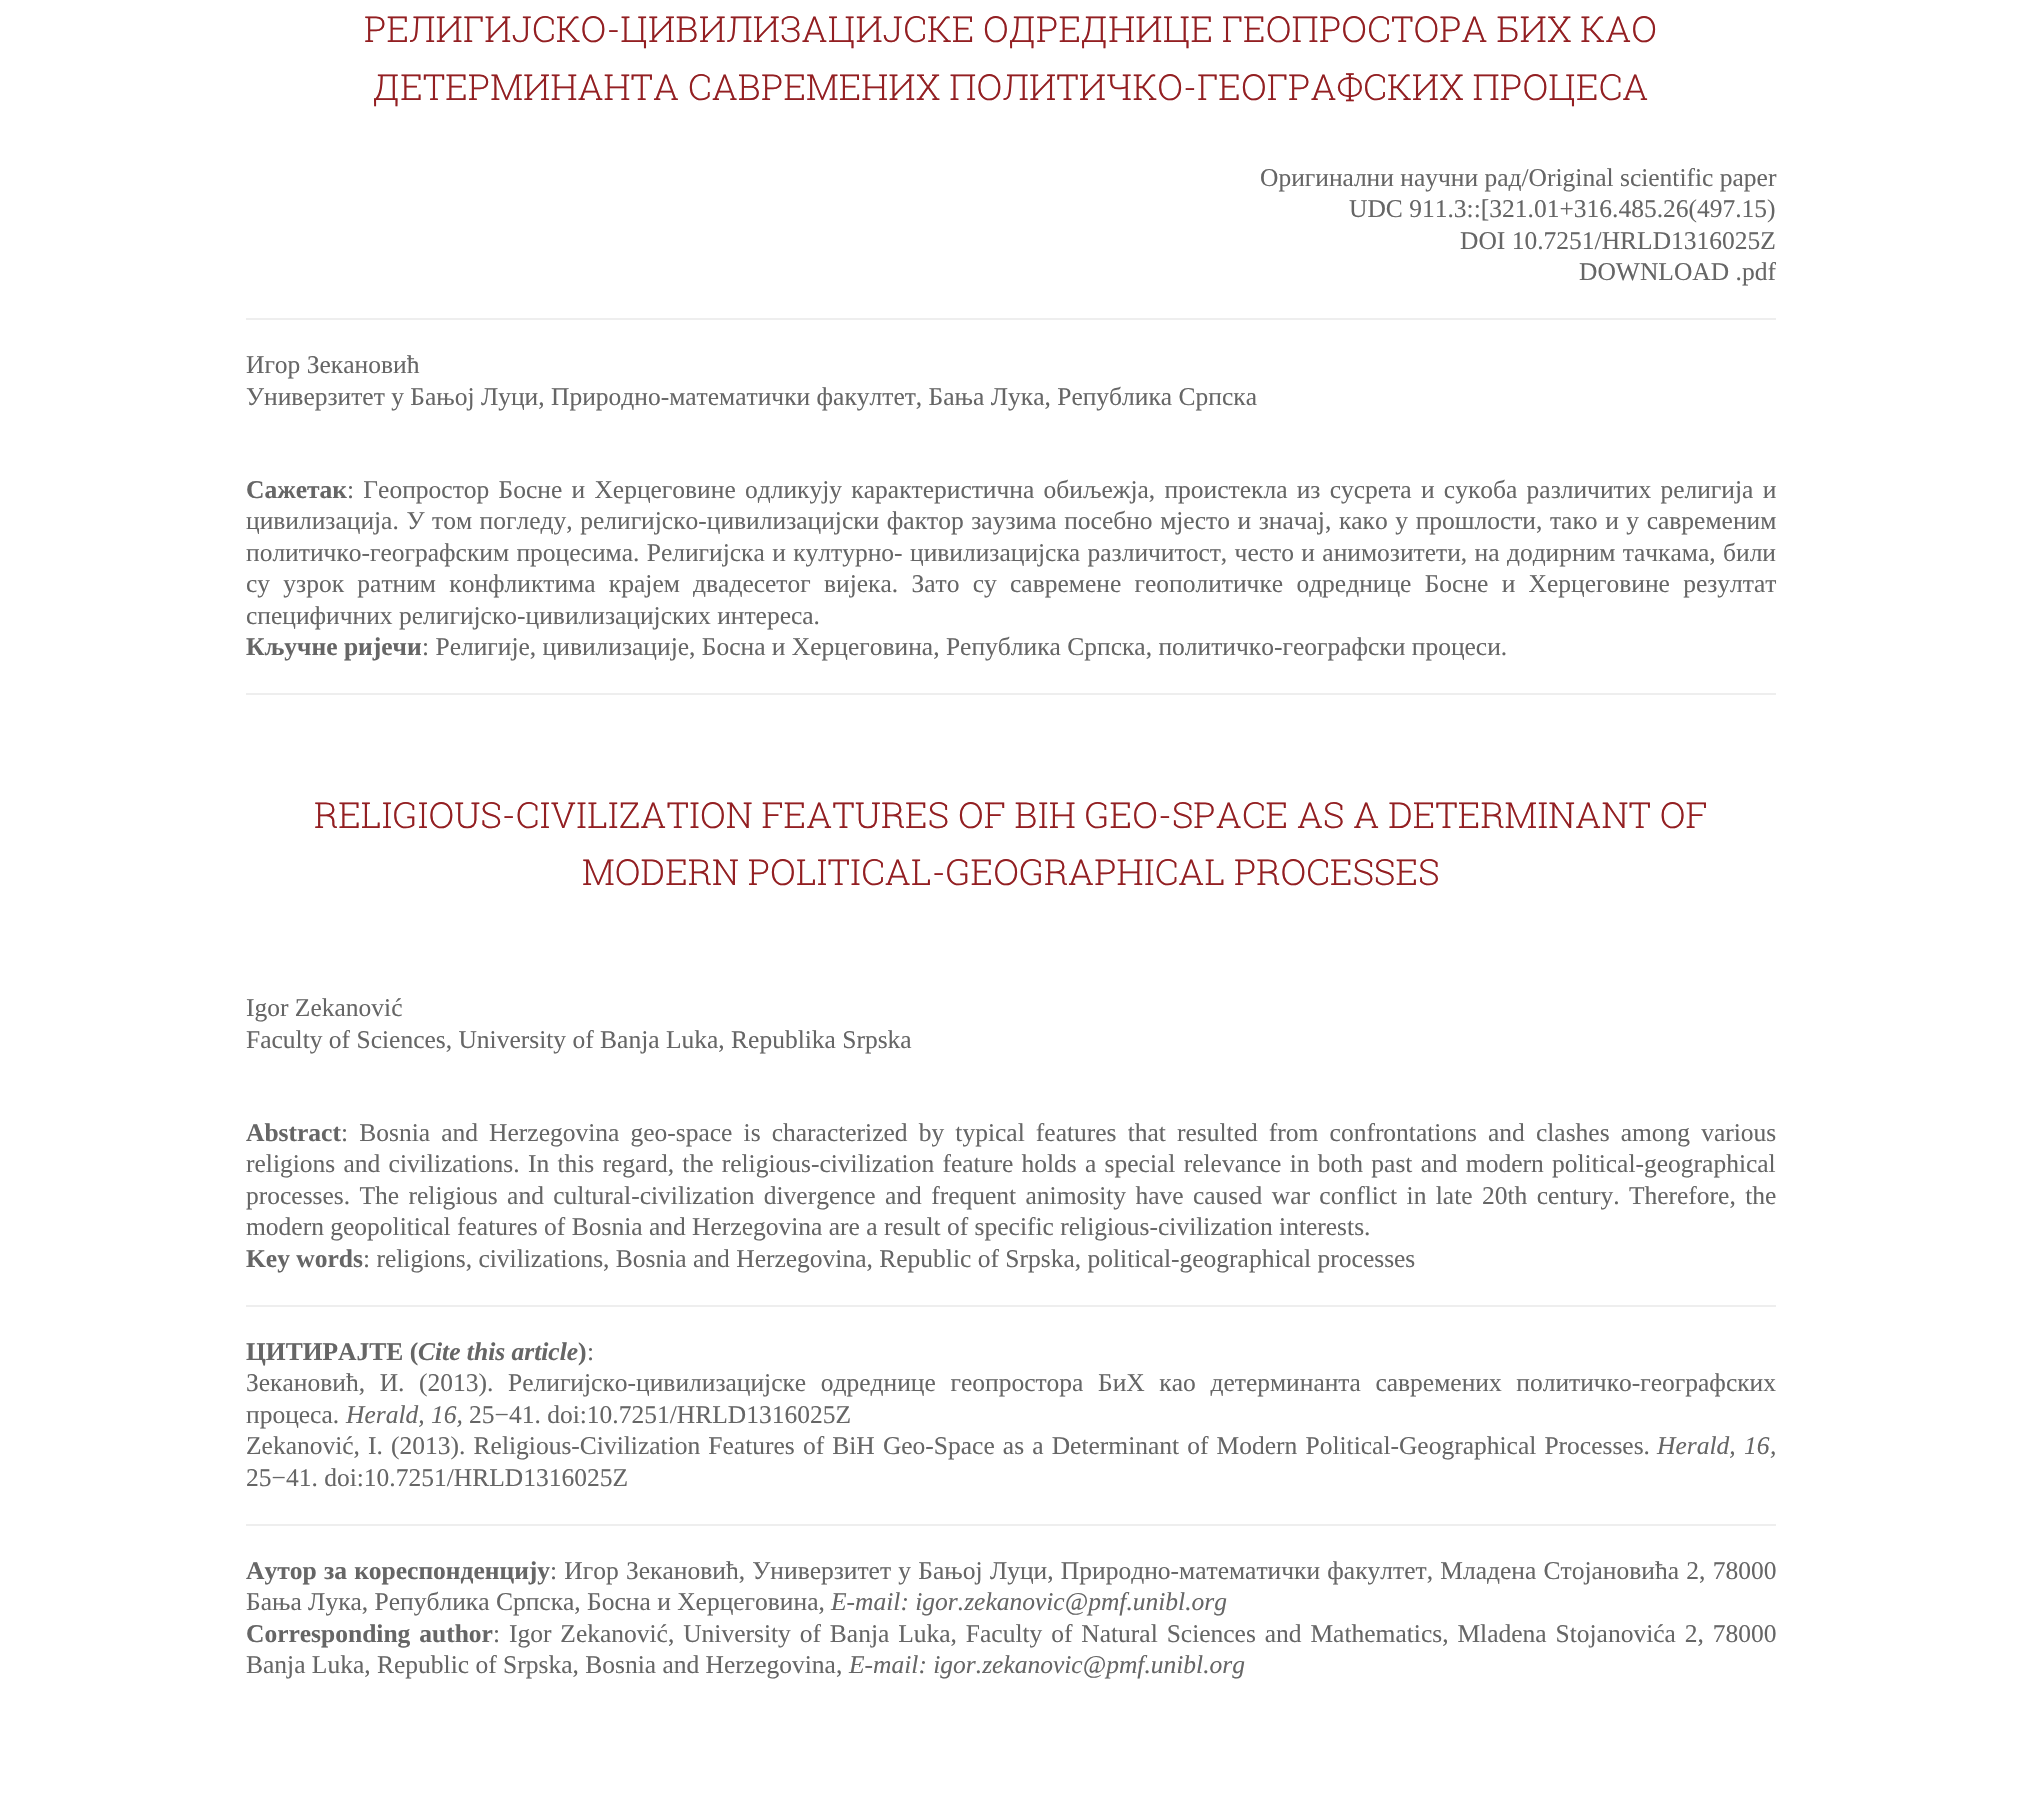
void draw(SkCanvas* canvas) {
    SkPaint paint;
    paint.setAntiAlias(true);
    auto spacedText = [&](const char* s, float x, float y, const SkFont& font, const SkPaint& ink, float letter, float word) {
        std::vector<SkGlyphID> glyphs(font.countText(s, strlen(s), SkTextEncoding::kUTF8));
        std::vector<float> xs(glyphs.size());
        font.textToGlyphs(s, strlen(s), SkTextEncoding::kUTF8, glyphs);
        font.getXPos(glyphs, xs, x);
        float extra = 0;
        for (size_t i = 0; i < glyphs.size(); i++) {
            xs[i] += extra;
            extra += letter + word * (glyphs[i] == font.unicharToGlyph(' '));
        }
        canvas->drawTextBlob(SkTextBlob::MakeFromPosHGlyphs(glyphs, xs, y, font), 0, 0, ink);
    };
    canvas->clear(0xFFFFFFFF);
    SkFont font1(fontMgr->matchFamilyStyle("Roboto Slab", SkFontStyle(300, SkFontStyle::kNormal_Width, SkFontStyle::kUpright_Slant)), 36);
    font1.setSubpixel(true);
    paint.setColor(0xFF931F22);
    canvas->drawString("РЕЛИГИЈСКО-ЦИВИЛИЗАЦИЈСКЕ ОДРЕДНИЦЕ ГЕОПРОСТОРА БИХ КАО", 364, 42, font1, paint);
    canvas->drawString("ДЕТЕРМИНАНТА САВРЕМЕНИХ ПОЛИТИЧКО-ГЕОГРАФСКИХ ПРОЦЕСА", 373, 100, font1, paint);
    SkFont font2(fontMgr->matchFamilyStyle("Liberation Serif", SkFontStyle::Normal()), 25.5f);
    font2.setSubpixel(true);
    paint.setColor(0xFF666666);
    canvas->drawString("Оригинални научни рад/Original scientific paper", 1260, 186, font2, paint);
    canvas->drawString("UDC 911.3::[321.01+316.485.26(497.15)", 1349, 217, font2, paint);
    canvas->drawString("DOI 10.7251/HRLD1316025Z", 1460, 249, font2, paint);
    canvas->drawString("DOWNLOAD .pdf", 1579, 280, font2, paint);
    paint.setColor(0xFFEEEEEE);
    canvas->drawRect(SkRect::MakeXYWH(246, 318, 1530, 2), paint);
    paint.setColor(0xFF666666);
    canvas->drawString("Игор Зекановић", 246, 373, font2, paint);
    canvas->drawString("Универзитет у Бањој Луци, Природно-математички факултет, Бања Лука, Република Српска", 246, 405, font2, paint);
    SkFont font3(fontMgr->matchFamilyStyle("Liberation Serif", SkFontStyle::Bold()), 25.5f);
    font3.setSubpixel(true);
    canvas->drawString("Сажетак", 246, 498, font3, paint);
    spacedText(": Геопростор Босне и Херцеговине одликују карактеристична обиљежја, проистекла из сусрета и сукоба различитих религија и", 347, 498, font2, paint, 0, 2.9f);
    spacedText("цивилизација. У том погледу, религијско-цивилизацијски фактор заузима посебно мјесто и значај, како у прошлости, тако и у савременим", 246, 529, font2, paint, 0, 1.2f);
    spacedText("политичко-географским процесима. Религијска и културно- цивилизацијска различитост, често и анимозитети, на додирним тачкама, били", 246, 561, font2, paint, 0, 1);
    spacedText("су узрок ратним конфликтима крајем двадесетог вијека. Зато су савремене геополитичке одреднице Босне и Херцеговине резултат", 246, 592, font2, paint, 0, 6.9f);
    canvas->drawString("специфичних религијско-цивилизацијских интереса.", 246, 624, font2, paint);
    canvas->drawString("Кључне ријечи", 246, 655, font3, paint);
    canvas->drawString(": Религије, цивилизације, Босна и Херцеговина, Република Српска, политичко-географски процеси.", 422, 655, font2, paint);
    paint.setColor(0xFFEEEEEE);
    canvas->drawRect(SkRect::MakeXYWH(246, 693, 1530, 2), paint);
    paint.setColor(0xFF931F22);
    canvas->drawString("RELIGIOUS-CIVILIZATION FEATURES OF BIH GEO-SPACE AS A DETERMINANT OF", 314, 828, font1, paint);
    canvas->drawString("MODERN POLITICAL-GEOGRAPHICAL PROCESSES", 582, 885, font1, paint);
    paint.setColor(0xFF666666);
    canvas->drawString("Igor Zekanović", 246, 1016, font2, paint);
    canvas->drawString("Faculty of Sciences, University of Banja Luka, Republika Srpska", 246, 1048, font2, paint);
    canvas->drawString("Abstract", 246, 1141, font3, paint);
    spacedText(": Bosnia and Herzegovina geo-space is characterized by typical features that resulted from confrontations and clashes among various", 341, 1141, font2, paint, 0, 4.75f);
    spacedText("religions and civilizations. In this regard, the religious-civilization feature holds a special relevance in both past and modern political-geographical", 246, 1172, font2, paint, 0, 1.9f);
    spacedText("processes. The religious and cultural-civilization divergence and frequent animosity have caused war conflict in late 20th century. Therefore, the", 246, 1204, font2, paint, 0, 3);
    canvas->drawString("modern geopolitical features of Bosnia and Herzegovina are a result of specific religious-civilization interests.", 246, 1235, font2, paint);
    canvas->drawString("Key words", 246, 1267, font3, paint);
    canvas->drawString(": religions, civilizations, Bosnia and Herzegovina, Republic of Srpska, political-geographical processes", 363, 1267, font2, paint);
    paint.setColor(0xFFEEEEEE);
    canvas->drawRect(SkRect::MakeXYWH(246, 1305, 1530, 2), paint);
    paint.setColor(0xFF666666);
    canvas->drawString("ЦИТИРАЈТЕ (", 246, 1360, font3, paint);
    SkFont font4(fontMgr->matchFamilyStyle("Liberation Serif", SkFontStyle::BoldItalic()), 25.5f);
    font4.setSubpixel(true);
    canvas->drawString("Cite this article", 418, 1360, font4, paint);
    canvas->drawString(")", 578, 1360, font3, paint);
    canvas->drawString(":", 587, 1360, font2, paint);
    spacedText("Зекановић, И. (2013). Религијско-цивилизацијске одреднице геопростора БиХ као детерминанта савремених политичко-географских", 246, 1391, font2, paint, 0, 8.25f);
    canvas->drawString("процеса.", 246, 1423, font2, paint);
    SkFont font5(fontMgr->matchFamilyStyle("Liberation Serif", SkFontStyle::Italic()), 25.5f);
    font5.setSubpixel(true);
    canvas->drawString("Herald, 16,", 346, 1423, font5, paint);
    canvas->drawString("25−41. doi:10.7251/HRLD1316025Z", 469, 1423, font2, paint);
    spacedText("Zekanović, I. (2013). Religious-Civilization Features of BiH Geo-Space as a Determinant of Modern Political-Geographical Processes.", 246, 1454, font2, paint, 0, 1.75f);
    spacedText("Herald, 16", 1657, 1454, font5, paint, 0, 2);
    canvas->drawString(",", 1770, 1454, font5, paint);
    canvas->drawString("25−41. doi:10.7251/HRLD1316025Z", 246, 1486, font2, paint);
    paint.setColor(0xFFEEEEEE);
    canvas->drawRect(SkRect::MakeXYWH(246, 1524, 1530, 2), paint);
    paint.setColor(0xFF666666);
    spacedText("Аутор за кореспонденцију", 246, 1579, font3, paint, 0, 0.9f);
    spacedText(": Игор Зекановић, Универзитет у Бањој Луци, Природно-математички факултет, Младена Стојановића 2, 78000", 550, 1579, font2, paint, 0, 0.9f);
    canvas->drawString("Бања Лука, Република Српска, Босна и Херцеговина,", 246, 1610, font2, paint);
    canvas->drawString("E-mail: igor.zekanovic@pmf.unibl.org", 831, 1610, font5, paint);
    spacedText("Corresponding author", 246, 1642, font3, paint, 0, 2.5f);
    spacedText(": Igor Zekanović, University of Banja Luka, Faculty of Natural Sciences and Mathematics, Mladena Stojanovića 2, 78000", 493, 1642, font2, paint, 0, 2.5f);
    canvas->drawString("Banja Luka, Republic of Srpska, Bosnia and Herzegovina,", 246, 1673, font2, paint);
    canvas->drawString("E-mail: igor.zekanovic@pmf.unibl.org", 849, 1673, font5, paint);
}
